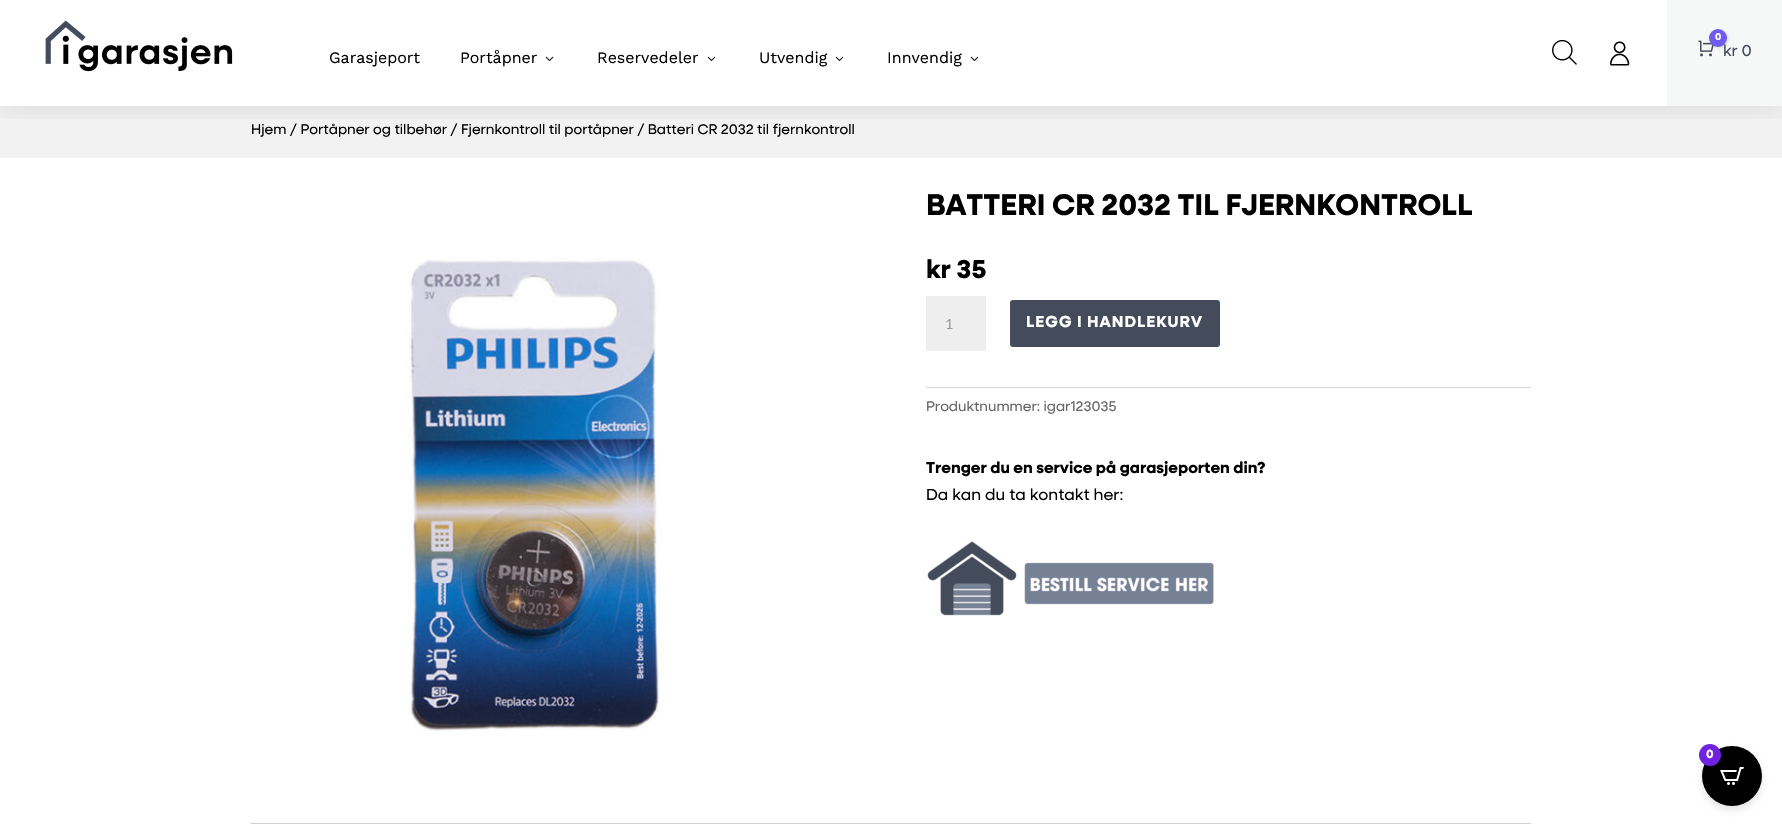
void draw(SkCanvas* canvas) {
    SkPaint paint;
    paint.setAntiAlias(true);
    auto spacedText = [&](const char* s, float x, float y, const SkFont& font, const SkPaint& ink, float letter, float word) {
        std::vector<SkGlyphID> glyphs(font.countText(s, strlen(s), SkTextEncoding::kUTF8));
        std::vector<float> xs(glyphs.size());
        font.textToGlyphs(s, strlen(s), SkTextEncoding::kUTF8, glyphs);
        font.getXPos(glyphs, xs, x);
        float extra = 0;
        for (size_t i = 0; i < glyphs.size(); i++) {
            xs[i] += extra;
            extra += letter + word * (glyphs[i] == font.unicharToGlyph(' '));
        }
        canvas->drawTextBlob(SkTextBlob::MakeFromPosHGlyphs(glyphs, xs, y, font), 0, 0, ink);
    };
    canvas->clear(0xFFFFFFFF);
    paint.setColor(0xFFF2F2F2);
    canvas->drawRect(SkRect::MakeXYWH(0, 106, 1782, 52), paint);
    canvas->save();
    canvas->clipRect(SkRect::MakeXYWH(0, 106, 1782, 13));
    paint.setColor(0x1A000000);
    paint.setMaskFilter(SkMaskFilter::MakeBlur(kNormal_SkBlurStyle, 12.5f));
    canvas->drawRect(SkRect::MakeXYWH(0, 2, 1782, 106), paint);
    paint.setMaskFilter(nullptr);
    canvas->restore();
    canvas->drawImageRect(SkImages::DeferredFromEncodedData(SkData::MakeFromFileName("img1.png")), SkRect::MakeXYWH(45, 20, 188, 52), SkSamplingOptions());
    SkFont font1(fontMgr->matchFamilyStyle("Work Sans", SkFontStyle::Normal()), 16);
    font1.setSubpixel(true);
    paint.setColor(0xFF000000);
    canvas->drawString("Garasjeport", 329, 63, font1, paint);
    canvas->drawString("Portåpner", 460, 63, font1, paint);
    canvas->drawImageRect(SkImages::DeferredFromEncodedData(SkData::MakeFromFileName("img2.png")), SkRect::MakeXYWH(545, 56, 9, 5), SkSamplingOptions());
    canvas->drawString("Reservedeler", 597, 63, font1, paint);
    canvas->drawImageRect(SkImages::DeferredFromEncodedData(SkData::MakeFromFileName("img2.png")), SkRect::MakeXYWH(707, 56, 9, 5), SkSamplingOptions());
    canvas->drawString("Utvendig", 759, 63, font1, paint);
    canvas->drawImageRect(SkImages::DeferredFromEncodedData(SkData::MakeFromFileName("img2.png")), SkRect::MakeXYWH(835, 56, 9, 5), SkSamplingOptions());
    canvas->drawString("Innvendig", 887, 63, font1, paint);
    canvas->drawImageRect(SkImages::DeferredFromEncodedData(SkData::MakeFromFileName("img2.png")), SkRect::MakeXYWH(970, 56, 9, 5), SkSamplingOptions());
    canvas->drawImageRect(SkImages::DeferredFromEncodedData(SkData::MakeFromFileName("img3.png")), SkRect::MakeXYWH(1552, 40, 25, 25), SkSamplingOptions());
    canvas->drawImageRect(SkImages::DeferredFromEncodedData(SkData::MakeFromFileName("img4.png")), SkRect::MakeXYWH(1610, 41, 20, 25), SkSamplingOptions());
    paint.setColor(0xFFF6F7F7);
    canvas->drawRect(SkRect::MakeXYWH(1667, 0, 115, 106), paint);
    canvas->drawImageRect(SkImages::DeferredFromEncodedData(SkData::MakeFromFileName("img5.png")), SkRect::MakeXYWH(1698, 40, 16, 17), SkSamplingOptions());
    paint.setColor(0x26000000);
    paint.setMaskFilter(SkMaskFilter::MakeBlur(kNormal_SkBlurStyle, 1.5f));
    canvas->drawRoundRect(SkRect::MakeXYWH(1710, 30, 18, 18), 9, 9, paint);
    paint.setMaskFilter(nullptr);
    SkFont font2(fontMgr->matchFamilyStyle("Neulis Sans", SkFontStyle::Normal()), 16);
    font2.setSubpixel(true);
    paint.setColor(0xFF444C5C);
    canvas->drawString("kr 0", 1723, 56, font2, paint);
    paint.setColor(0xFF705AEF);
    canvas->drawCircle(1718, 38, 9, paint);
    SkFont font3(fontMgr->matchFamilyStyle("Neulis Sans", SkFontStyle::Bold()), 10);
    font3.setSubpixel(true);
    paint.setColor(0xFFFFFFFF);
    canvas->drawString("0", 1715, 40, font3, paint);
    SkFont font4(fontMgr->matchFamilyStyle("Neulis Sans", SkFontStyle::Normal()), 14);
    font4.setSubpixel(true);
    paint.setColor(0xFF000000);
    canvas->drawString("Hjem / Portåpner og tilbehør / Fjernkontroll til portåpner / Batteri CR 2032 til fjernkontroll", 251, 134, font4, paint);
    canvas->drawImageRect(SkImages::DeferredFromEncodedData(SkData::MakeFromFileName("img6.png")), SkRect::MakeXYWH(407, 258, 257, 473), SkSamplingOptions());
    SkFont font5(fontMgr->matchFamilyStyle("Neulis Sans", SkFontStyle::Bold()), 30);
    font5.setSubpixel(true);
    canvas->drawString("BATTERI CR 2032 TIL FJERNKONTROLL", 926, 215, font5, paint);
    SkFont font6(fontMgr->matchFamilyStyle("Neulis Sans", SkFontStyle::Bold()), 26);
    font6.setSubpixel(true);
    canvas->drawString("kr 35", 926, 278, font6, paint);
    paint.setColor(0xFFEEEEEE);
    canvas->drawRect(SkRect::MakeXYWH(926, 296, 60, 55), paint);
    SkFont font7(fontMgr->matchFamilyStyle("Lato", SkFontStyle::Normal()), 14);
    font7.setSubpixel(true);
    paint.setColor(0xFF999999);
    canvas->drawString("1", 945, 329, font7, paint);
    paint.setColor(0xFF444C5C);
    canvas->drawRoundRect(SkRect::MakeXYWH(1010, 300, 210, 47), 3, 3, paint);
    SkFont font8(fontMgr->matchFamilyStyle("Neulis Sans", SkFontStyle::Bold()), 16);
    font8.setSubpixel(true);
    paint.setColor(0xFFFFFFFF);
    spacedText("LEGG I HANDLEKURV", 1026, 327, font8, paint, 1, 0);
    paint.setColor(0xFFDADADA);
    canvas->drawRect(SkRect::MakeXYWH(926, 387, 605, 1), paint);
    paint.setColor(0xFF666666);
    canvas->drawString("Produktnummer: igar123035", 926, 411, font4, paint);
    paint.setColor(0xFF000000);
    canvas->drawString("Trenger du en service på garasjeporten din?", 926, 473, font8, paint);
    canvas->drawString("Da kan du ta kontakt her:", 926, 500, font2, paint);
    canvas->drawImageRect(SkImages::DeferredFromEncodedData(SkData::MakeFromFileName("img7.png")), SkRect::MakeXYWH(927, 541, 287, 75), SkSamplingOptions());
    paint.setColor(0xFFCFCFCF);
    canvas->drawRect(SkRect::MakeXYWH(251, 823, 1280, 1), paint);
    paint.setColor(0x1A000000);
    paint.setMaskFilter(SkMaskFilter::MakeBlur(kNormal_SkBlurStyle, 3.5f));
    canvas->drawRoundRect(SkRect::MakeXYWH(1702, 750, 60, 60), 30, 30, paint);
    paint.setMaskFilter(nullptr);
    paint.setColor(0xFF000000);
    canvas->drawCircle(1732, 776, 30, paint);
    paint.setColor(0xFF6F23E1);
    canvas->drawCircle(1710, 755, 11, paint);
    SkFont font9(fontMgr->matchFamilyStyle("Neulis Sans", SkFontStyle::Bold()), 12);
    font9.setSubpixel(true);
    paint.setColor(0xFFFFFFFF);
    canvas->drawString("0", 1706, 758, font9, paint);
    canvas->drawImageRect(SkImages::DeferredFromEncodedData(SkData::MakeFromFileName("img8.png")), SkRect::MakeXYWH(1720, 767, 24, 18), SkSamplingOptions());
}
